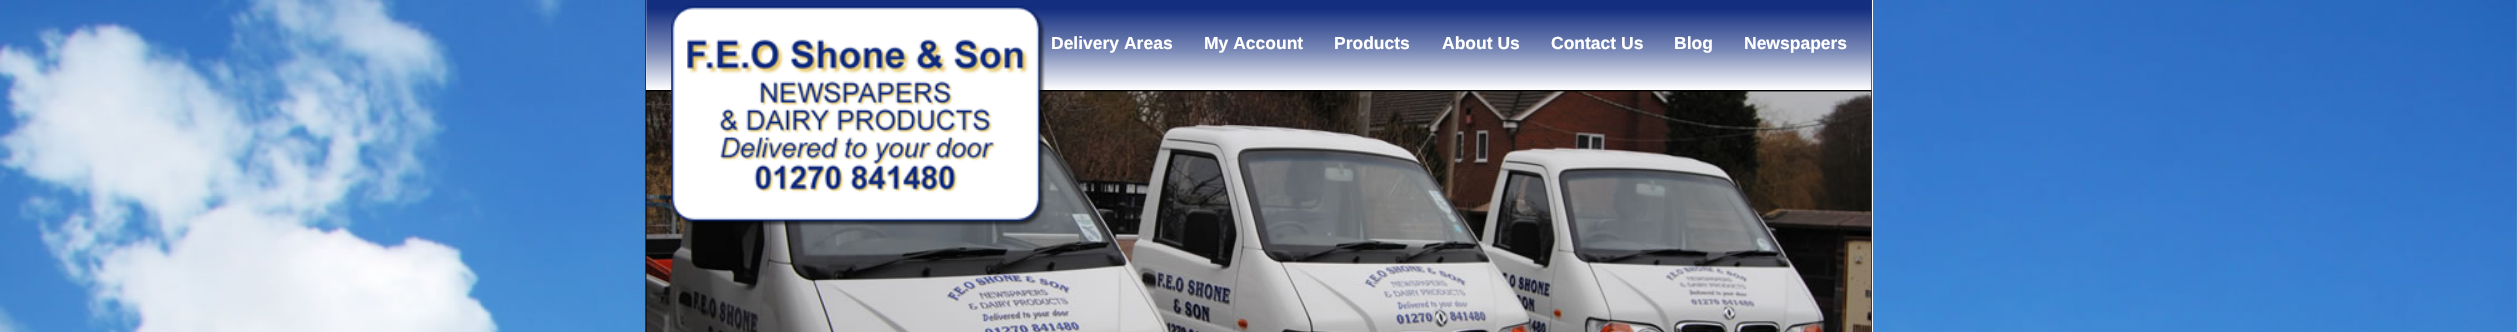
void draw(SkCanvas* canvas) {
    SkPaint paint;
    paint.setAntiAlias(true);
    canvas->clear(0xFFFFFFFF);
    canvas->drawImageRect(SkImages::DeferredFromEncodedData(SkData::MakeFromFileName("img1.png")), SkRect::MakeXYWH(0, 0, 2517, 332), SkSamplingOptions());
    paint.setColor(0xFFFFFFFF);
    canvas->drawRect(SkRect::MakeXYWH(646, 0, 1227, 332), paint);
    paint.setColor(0xFF333333);
    canvas->drawRect(SkRect::MakeXYWH(1871, 0, 1, 332), paint);
    canvas->drawRect(SkRect::MakeXYWH(645, 0, 1, 332), paint);
    canvas->drawImageRect(SkImages::DeferredFromEncodedData(SkData::MakeFromFileName("img2.png")), SkRect::MakeXYWH(646, 0, 1226, 90), SkSamplingOptions());
    paint.setColor(0xFF000000);
    canvas->drawRect(SkRect::MakeXYWH(646, 90, 1225, 242), paint);
    canvas->drawImageRect(SkImages::DeferredFromEncodedData(SkData::MakeFromFileName("img4.png")), SkRect::MakeXYWH(646, 91, 1226, 241), SkSamplingOptions());
    canvas->drawImageRect(SkImages::DeferredFromEncodedData(SkData::MakeFromFileName("img3.png")), SkRect::MakeXYWH(671, 6, 374, 220), SkSamplingOptions());
    SkFont font1(fontMgr->matchFamilyStyle("Liberation Sans", SkFontStyle::Bold()), 17.5f);
    font1.setSubpixel(true);
    paint.setColor(0xFFFFFFFF);
    canvas->drawString("Delivery Areas", 1051, 49, font1, paint);
    canvas->drawString("My Account", 1204, 49, font1, paint);
    canvas->drawString("Products", 1334, 49, font1, paint);
    canvas->drawString("About Us", 1442, 49, font1, paint);
    canvas->drawString("Contact Us", 1551, 49, font1, paint);
    canvas->drawString("Blog", 1674, 49, font1, paint);
    canvas->drawString("Newspapers", 1744, 49, font1, paint);
}
